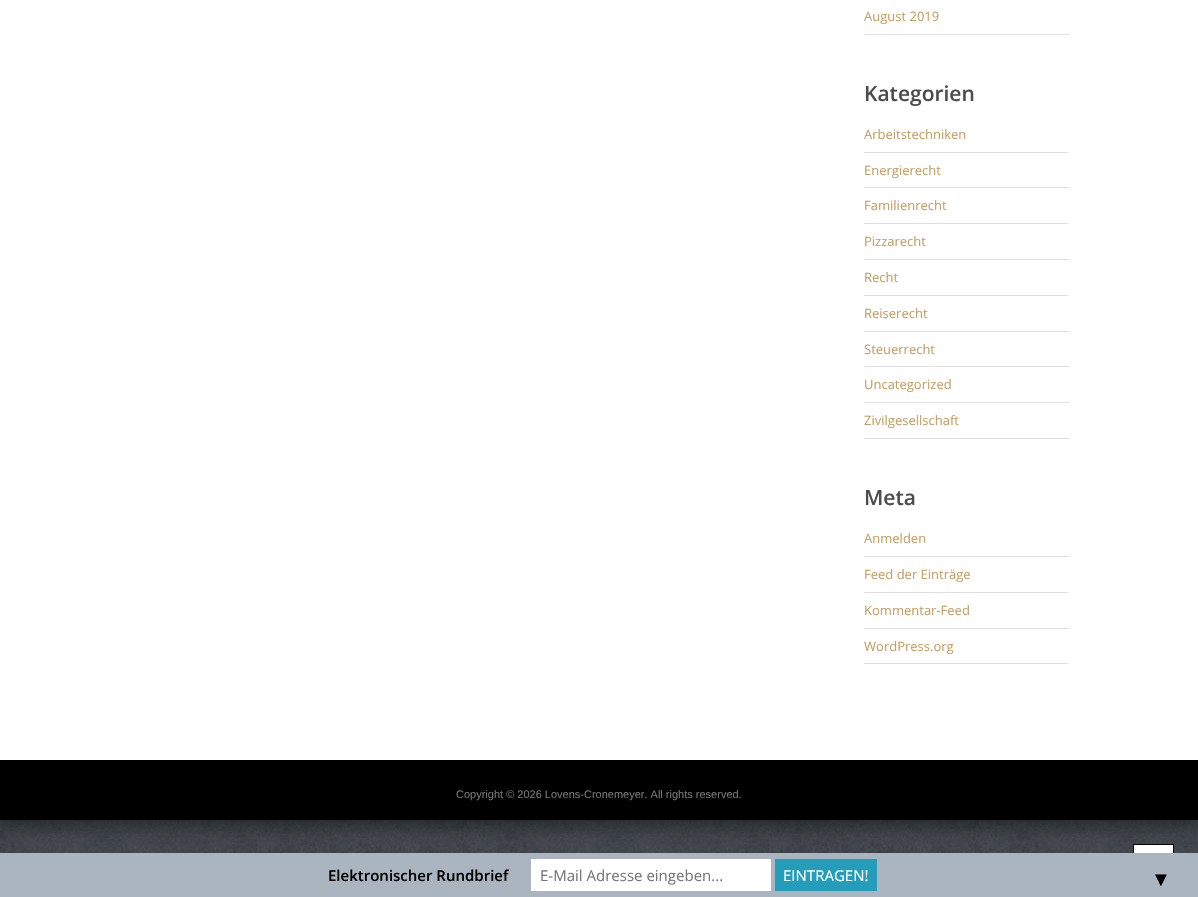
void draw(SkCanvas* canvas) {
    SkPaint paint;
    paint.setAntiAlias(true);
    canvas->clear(0xFFFFFFFF);
    canvas->drawImageRect(SkImages::DeferredFromEncodedData(SkData::MakeFromFileName("img1.png")), SkRect::MakeXYWH(0, 820, 1198, 33), SkSamplingOptions());
    paint.setColor(0x80000000);
    paint.setMaskFilter(SkMaskFilter::MakeBlur(kNormal_SkBlurStyle, 10));
    canvas->drawRect(SkRect::MakeXYWH(-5, -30, 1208, 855), paint);
    paint.setMaskFilter(nullptr);
    paint.setColor(0xFFFFFFFF);
    canvas->drawRect(SkRect::MakeXYWH(0, 0, 1198, 760), paint);
    paint.setColor(0xFFE0E0E0);
    canvas->drawRect(SkRect::MakeXYWH(864, 34, 205, 1), paint);
    SkFont font1(fontMgr->matchFamilyStyle("Open Sans", SkFontStyle::Normal()), 13);
    font1.setSubpixel(true);
    paint.setColor(0xFFC69F63);
    canvas->drawString("August 2019", 864, 21, font1, paint);
    SkFont font2(fontMgr->matchFamilyStyle("Open Sans", SkFontStyle(600, SkFontStyle::kNormal_Width, SkFontStyle::kUpright_Slant)), 21);
    font2.setSubpixel(true);
    paint.setColor(0xFF4C4C4C);
    canvas->drawString("Kategorien", 864, 101, font2, paint);
    paint.setColor(0xFFE0E0E0);
    canvas->drawRect(SkRect::MakeXYWH(864, 152, 205, 1), paint);
    paint.setColor(0xFFC69F63);
    canvas->drawString("Arbeitstechniken", 864, 139, font1, paint);
    paint.setColor(0xFFE0E0E0);
    canvas->drawRect(SkRect::MakeXYWH(864, 187, 205, 1), paint);
    paint.setColor(0xFFC69F63);
    canvas->drawString("Energierecht", 864, 175, font1, paint);
    paint.setColor(0xFFE0E0E0);
    canvas->drawRect(SkRect::MakeXYWH(864, 223, 205, 1), paint);
    paint.setColor(0xFFC69F63);
    canvas->drawString("Familienrecht", 864, 210, font1, paint);
    paint.setColor(0xFFE0E0E0);
    canvas->drawRect(SkRect::MakeXYWH(864, 259, 205, 1), paint);
    paint.setColor(0xFFC69F63);
    canvas->drawString("Pizzarecht", 864, 246, font1, paint);
    paint.setColor(0xFFE0E0E0);
    canvas->drawRect(SkRect::MakeXYWH(864, 295, 205, 1), paint);
    paint.setColor(0xFFC69F63);
    canvas->drawString("Recht", 864, 282, font1, paint);
    paint.setColor(0xFFE0E0E0);
    canvas->drawRect(SkRect::MakeXYWH(864, 331, 205, 1), paint);
    paint.setColor(0xFFC69F63);
    canvas->drawString("Reiserecht", 864, 318, font1, paint);
    paint.setColor(0xFFE0E0E0);
    canvas->drawRect(SkRect::MakeXYWH(864, 366, 205, 1), paint);
    paint.setColor(0xFFC69F63);
    canvas->drawString("Steuerrecht", 864, 354, font1, paint);
    paint.setColor(0xFFE0E0E0);
    canvas->drawRect(SkRect::MakeXYWH(864, 402, 205, 1), paint);
    paint.setColor(0xFFC69F63);
    canvas->drawString("Uncategorized", 864, 389, font1, paint);
    paint.setColor(0xFFE0E0E0);
    canvas->drawRect(SkRect::MakeXYWH(864, 438, 205, 1), paint);
    paint.setColor(0xFFC69F63);
    canvas->drawString("Zivilgesellschaft", 864, 425, font1, paint);
    paint.setColor(0xFF4C4C4C);
    canvas->drawString("Meta", 864, 505, font2, paint);
    paint.setColor(0xFFE0E0E0);
    canvas->drawRect(SkRect::MakeXYWH(864, 556, 205, 1), paint);
    paint.setColor(0xFFC69F63);
    canvas->drawString("Anmelden", 864, 543, font1, paint);
    paint.setColor(0xFFE0E0E0);
    canvas->drawRect(SkRect::MakeXYWH(864, 592, 205, 1), paint);
    paint.setColor(0xFFC69F63);
    canvas->drawString("Feed der Einträge", 864, 579, font1, paint);
    paint.setColor(0xFFE0E0E0);
    canvas->drawRect(SkRect::MakeXYWH(864, 628, 205, 1), paint);
    paint.setColor(0xFFC69F63);
    canvas->drawString("Kommentar-Feed", 864, 615, font1, paint);
    paint.setColor(0xFFE0E0E0);
    canvas->drawRect(SkRect::MakeXYWH(864, 663, 205, 1), paint);
    paint.setColor(0xFFC69F63);
    canvas->drawString("WordPress.org", 864, 651, font1, paint);
    paint.setColor(0xFF000000);
    canvas->drawRect(SkRect::MakeXYWH(0, 760, 1198, 60), paint);
    SkFont font3(fontMgr->matchFamilyStyle("Liberation Sans", SkFontStyle::Normal()), 11);
    font3.setSubpixel(true);
    paint.setColor(0xFF767676);
    canvas->drawString("Copyright © 2026 Lovens-Cronemeyer. All rights reserved.", 456, 798, font3, paint);
    paint.setColor(0xFFFFFFFF);
    canvas->drawRect(SkRect::MakeXYWH(1134, 845, 39, 8), paint);
    paint.setStyle(SkPaint::kStroke_Style);
    paint.setStrokeWidth(1);
    paint.setColor(0xFF000000);
    canvas->drawRect(SkRect::MakeXYWH(1133.5f, 844.5f, 40, 42), paint);
    paint.setStyle(SkPaint::kFill_Style);
    paint.setColor(0xFFAAB5BF);
    canvas->drawRect(SkRect::MakeXYWH(0, 853, 1198, 44), paint);
    SkFont font4(fontMgr->matchFamilyStyle("Open Sans", SkFontStyle(600, SkFontStyle::kNormal_Width, SkFontStyle::kUpright_Slant)), 15);
    font4.setSubpixel(true);
    paint.setColor(0xFF000000);
    canvas->drawString("Elektronischer Rundbrief", 328, 881, font4, paint);
    paint.setColor(0xFFFFFFFF);
    canvas->drawRect(SkRect::MakeXYWH(531, 859, 240, 32), paint);
    SkFont font5(fontMgr->matchFamilyStyle("Open Sans", SkFontStyle::Normal()), 15);
    font5.setSubpixel(true);
    paint.setColor(0xFF767676);
    canvas->drawString("E-Mail Adresse eingeben...", 540, 881, font5, paint);
    paint.setColor(0xFF249DBA);
    canvas->drawRect(SkRect::MakeXYWH(775, 859, 102, 32), paint);
    paint.setColor(0xFFFFFFFF);
    canvas->drawString("EINTRAGEN!", 783, 881, font5, paint);
    SkFont font6(fontMgr->matchFamilyStyle("Liberation Sans", SkFontStyle::Normal()), 20);
    font6.setSubpixel(true);
    paint.setColor(0xFF000000);
    canvas->drawString("▼", 1151, 886, font6, paint);
}
